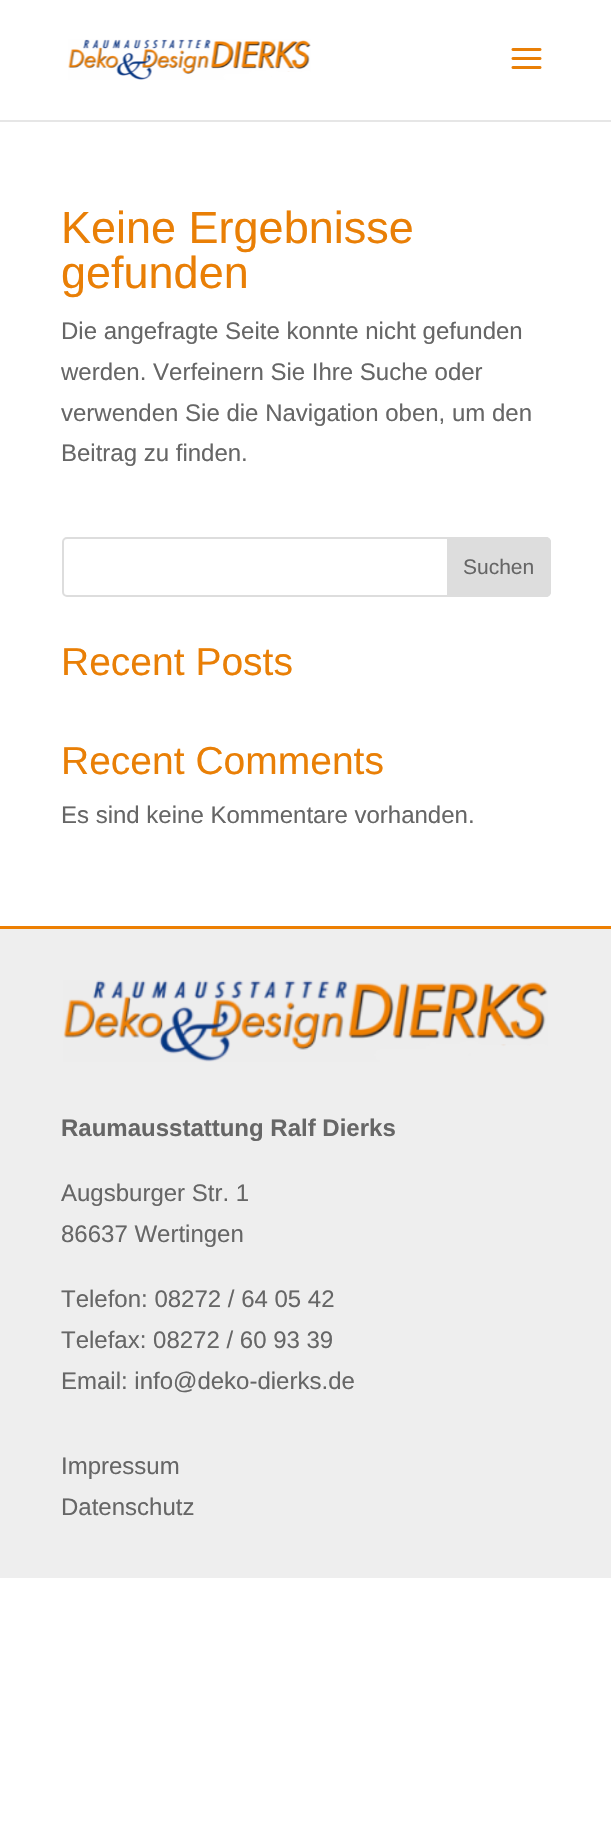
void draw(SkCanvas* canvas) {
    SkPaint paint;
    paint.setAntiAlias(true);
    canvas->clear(0xFFFFFFFF);
    paint.setColor(0xFFE6E6E6);
    canvas->drawRect(SkRect::MakeXYWH(0, 120, 611, 2), paint);
    canvas->drawImageRect(SkImages::DeferredFromEncodedData(SkData::MakeFromFileName("img1.png")), SkRect::MakeXYWH(68, 39, 243, 41), SkSamplingOptions());
    canvas->drawImageRect(SkImages::DeferredFromEncodedData(SkData::MakeFromFileName("img2.png")), SkRect::MakeXYWH(511, 48, 31, 21), SkSamplingOptions());
    SkFont font1(fontMgr->matchFamilyStyle("Liberation Sans", SkFontStyle::Normal()), 45);
    font1.setSubpixel(true);
    paint.setColor(0xFFE97F06);
    canvas->drawString("Keine Ergebnisse", 61, 243, font1, paint);
    canvas->drawString("gefunden", 61, 288, font1, paint);
    SkFont font2(fontMgr->matchFamilyStyle("Liberation Sans", SkFontStyle::Normal()), 24);
    font2.setSubpixel(true);
    paint.setColor(0xFF666666);
    canvas->drawString("Die angefragte Seite konnte nicht gefunden", 61, 339, font2, paint);
    canvas->drawString("werden. Verfeinern Sie Ihre Suche oder", 61, 380, font2, paint);
    canvas->drawString("verwenden Sie die Navigation oben, um den", 61, 421, font2, paint);
    canvas->drawString("Beitrag zu finden.", 61, 461, font2, paint);
    paint.setStyle(SkPaint::kStroke_Style);
    paint.setStrokeWidth(2);
    paint.setColor(0xFFDDDDDD);
    canvas->drawRoundRect(SkRect::MakeXYWH(63, 538, 487, 58), 4, 4, paint);
    paint.setStyle(SkPaint::kFill_Style);
    canvas->drawPath(SkPathBuilder().moveTo(448, 538).lineTo(546, 538).cubicTo(548, 538, 550, 540, 550, 542).lineTo(550, 592).cubicTo(550, 594, 548, 596, 546, 596).lineTo(448, 596).close().detach(), paint);
    paint.setStyle(SkPaint::kStroke_Style);
    canvas->drawPath(SkPathBuilder().moveTo(448, 538).lineTo(546, 538).cubicTo(548, 538, 550, 540, 550, 542).lineTo(550, 592).cubicTo(550, 594, 548, 596, 546, 596).lineTo(448, 596).close().detach(), paint);
    SkFont font3(fontMgr->matchFamilyStyle("Liberation Sans", SkFontStyle::Normal()), 21);
    font3.setSubpixel(true);
    paint.setStyle(SkPaint::kFill_Style);
    paint.setColor(0xFF666666);
    canvas->drawString("Suchen", 463, 574, font3, paint);
    SkFont font4(fontMgr->matchFamilyStyle("Liberation Sans", SkFontStyle::Normal()), 39);
    font4.setSubpixel(true);
    paint.setColor(0xFFE97F06);
    canvas->drawString("Recent Posts", 61, 675, font4, paint);
    canvas->drawString("Recent Comments", 61, 774, font4, paint);
    paint.setColor(0xFF666666);
    canvas->drawString("Es sind keine Kommentare vorhanden.", 61, 823, font2, paint);
    paint.setColor(0xFFEEEEEE);
    canvas->drawRect(SkRect::MakeXYWH(0, 929, 611, 649), paint);
    paint.setColor(0xFFED7F02);
    canvas->drawRect(SkRect::MakeXYWH(0, 926, 611, 3), paint);
    canvas->drawImageRect(SkImages::DeferredFromEncodedData(SkData::MakeFromFileName("img3.png")), SkRect::MakeXYWH(63, 980, 485, 82), SkSamplingOptions());
    SkFont font5(fontMgr->matchFamilyStyle("Liberation Sans", SkFontStyle::Bold()), 24);
    font5.setSubpixel(true);
    paint.setColor(0xFF666666);
    canvas->drawString("Raumausstattung Ralf Dierks", 61, 1136, font5, paint);
    canvas->drawString("Augsburger Str. 1", 61, 1201, font2, paint);
    canvas->drawString("86637 Wertingen", 61, 1242, font2, paint);
    canvas->drawString("Telefon: 08272 / 64 05 42", 61, 1307, font2, paint);
    canvas->drawString("Telefax: 08272 / 60 93 39", 61, 1348, font2, paint);
    canvas->drawString("Email: info@deko-dierks.de", 61, 1389, font2, paint);
    canvas->drawString("Impressum", 61, 1474, font2, paint);
    canvas->drawString("Datenschutz", 61, 1515, font2, paint);
}
